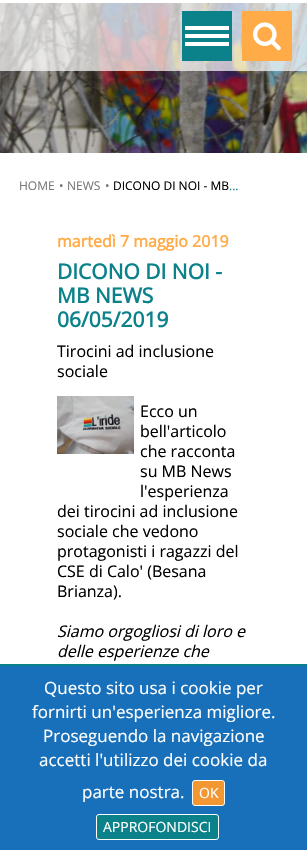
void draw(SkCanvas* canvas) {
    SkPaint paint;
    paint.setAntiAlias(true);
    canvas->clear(0xFFFFFFFF);
    canvas->drawImageRect(SkImages::DeferredFromEncodedData(SkData::MakeFromFileName("img1.png")), SkRect::MakeXYWH(0, 3, 307, 150), SkSamplingOptions());
    paint.setColor(0xB3FFFFFF);
    canvas->drawRect(SkRect::MakeXYWH(0, 3, 307, 68), paint);
    paint.setColor(0xFF0B828A);
    canvas->drawRect(SkRect::MakeXYWH(182, 11, 50, 50), paint);
    paint.setColor(0xFFFFFFFF);
    canvas->drawRect(SkRect::MakeXYWH(185, 26, 44, 4), paint);
    canvas->drawRect(SkRect::MakeXYWH(185, 34, 44, 4), paint);
    canvas->drawRect(SkRect::MakeXYWH(185, 42, 44, 4), paint);
    paint.setColor(0xFFFFAC48);
    canvas->drawRect(SkRect::MakeXYWH(242, 11, 50, 50), paint);
    canvas->drawImageRect(SkImages::DeferredFromEncodedData(SkData::MakeFromFileName("img2.png")), SkRect::MakeXYWH(253, 22, 28, 29), SkSamplingOptions());
    SkFont font1(fontMgr->matchFamilyStyle("Open Sans", SkFontStyle::Normal()), 12);
    font1.setSubpixel(true);
    paint.setColor(0xFF787878);
    canvas->drawString("HOME", 19, 190, font1, paint);
    canvas->drawString("•", 59, 190, font1, paint);
    canvas->drawString("NEWS", 67, 190, font1, paint);
    canvas->drawString("•", 105, 190, font1, paint);
    paint.setColor(0xFF000000);
    canvas->drawString("DICONO DI NOI - MB", 113, 190, font1, paint);
    paint.setColor(0xFF0B828A);
    canvas->drawString("...", 229, 190, font1, paint);
    SkFont font2(fontMgr->matchFamilyStyle("Open Sans", SkFontStyle::Bold()), 16);
    font2.setSubpixel(true);
    paint.setColor(0xFFFFAC48);
    canvas->drawString("martedì 7 maggio 2019", 57, 247, font2, paint);
    SkFont font3(fontMgr->matchFamilyStyle("Open Sans", SkFontStyle::Bold()), 21);
    font3.setSubpixel(true);
    paint.setColor(0xFF0B828A);
    canvas->drawString("DICONO DI NOI -", 57, 279, font3, paint);
    canvas->drawString("MB NEWS", 57, 303, font3, paint);
    canvas->drawString("06/05/2019", 57, 327, font3, paint);
    SkFont font4(fontMgr->matchFamilyStyle("Open Sans", SkFontStyle::Normal()), 16);
    font4.setSubpixel(true);
    paint.setColor(0xFF000000);
    canvas->drawString("Tirocini ad inclusione", 57, 357, font4, paint);
    canvas->drawString("sociale", 57, 377, font4, paint);
    canvas->drawImageRect(SkImages::DeferredFromEncodedData(SkData::MakeFromFileName("img3.png")), SkRect::MakeXYWH(57, 396, 77, 58), SkSamplingOptions());
    canvas->drawString("Ecco un", 140, 417, font4, paint);
    canvas->drawString("bell'articolo", 140, 437, font4, paint);
    canvas->drawString("che racconta", 140, 457, font4, paint);
    canvas->drawString("su MB News", 140, 477, font4, paint);
    canvas->drawString("l'esperienza", 140, 497, font4, paint);
    canvas->drawString("dei tirocini ad inclusione", 57, 517, font4, paint);
    canvas->drawString("sociale che vedono", 57, 537, font4, paint);
    canvas->drawString("protagonisti i ragazzi del", 57, 557, font4, paint);
    canvas->drawString("CSE di Calo' (Besana", 57, 577, font4, paint);
    canvas->drawString("Brianza).", 57, 597, font4, paint);
    SkFont font5(fontMgr->matchFamilyStyle("Open Sans", SkFontStyle::Italic()), 16);
    font5.setSubpixel(true);
    canvas->drawString("Siamo orgogliosi di loro e", 57, 637, font5, paint);
    canvas->drawString("delle esperienze che", 57, 657, font5, paint);
    paint.setColor(0xFF1870BA);
    canvas->drawRect(SkRect::MakeXYWH(0, 666, 307, 184), paint);
    paint.setColor(0xFF0B828A);
    canvas->drawRect(SkRect::MakeXYWH(0, 664, 307, 2), paint);
    SkFont font6(fontMgr->matchFamilyStyle("Open Sans", SkFontStyle::Normal()), 17);
    font6.setSubpixel(true);
    paint.setColor(0xFFFFFFFF);
    canvas->drawString("Questo sito usa i cookie per", 44, 694, font6, paint);
    canvas->drawString("fornirti un'esperienza migliore.", 32, 718, font6, paint);
    canvas->drawString("Proseguendo la navigazione", 43, 742, font6, paint);
    canvas->drawString("accetti l'utilizzo dei cookie da", 39, 766, font6, paint);
    canvas->drawString("parte nostra.", 82, 798, font6, paint);
    paint.setColor(0xFFF29731);
    canvas->drawRoundRect(SkRect::MakeXYWH(192.5f, 780.5f, 32, 25), 2.5f, 2.5f, paint);
    paint.setStyle(SkPaint::kStroke_Style);
    paint.setStrokeWidth(1);
    paint.setColor(0xFFFFFFFF);
    canvas->drawRoundRect(SkRect::MakeXYWH(192.5f, 780.5f, 32, 25), 2.5f, 2.5f, paint);
    SkFont font7(fontMgr->matchFamilyStyle("Open Sans", SkFontStyle::Normal()), 14);
    font7.setSubpixel(true);
    paint.setStyle(SkPaint::kFill_Style);
    canvas->drawString("OK", 199, 798, font7, paint);
    paint.setColor(0xFF0B828A);
    canvas->drawRoundRect(SkRect::MakeXYWH(96.5f, 814.5f, 122, 25), 2.5f, 2.5f, paint);
    paint.setStyle(SkPaint::kStroke_Style);
    paint.setColor(0xFFFFFFFF);
    canvas->drawRoundRect(SkRect::MakeXYWH(96.5f, 814.5f, 122, 25), 2.5f, 2.5f, paint);
    paint.setStyle(SkPaint::kFill_Style);
    canvas->drawString("APPROFONDISCI", 103, 832, font7, paint);
}
